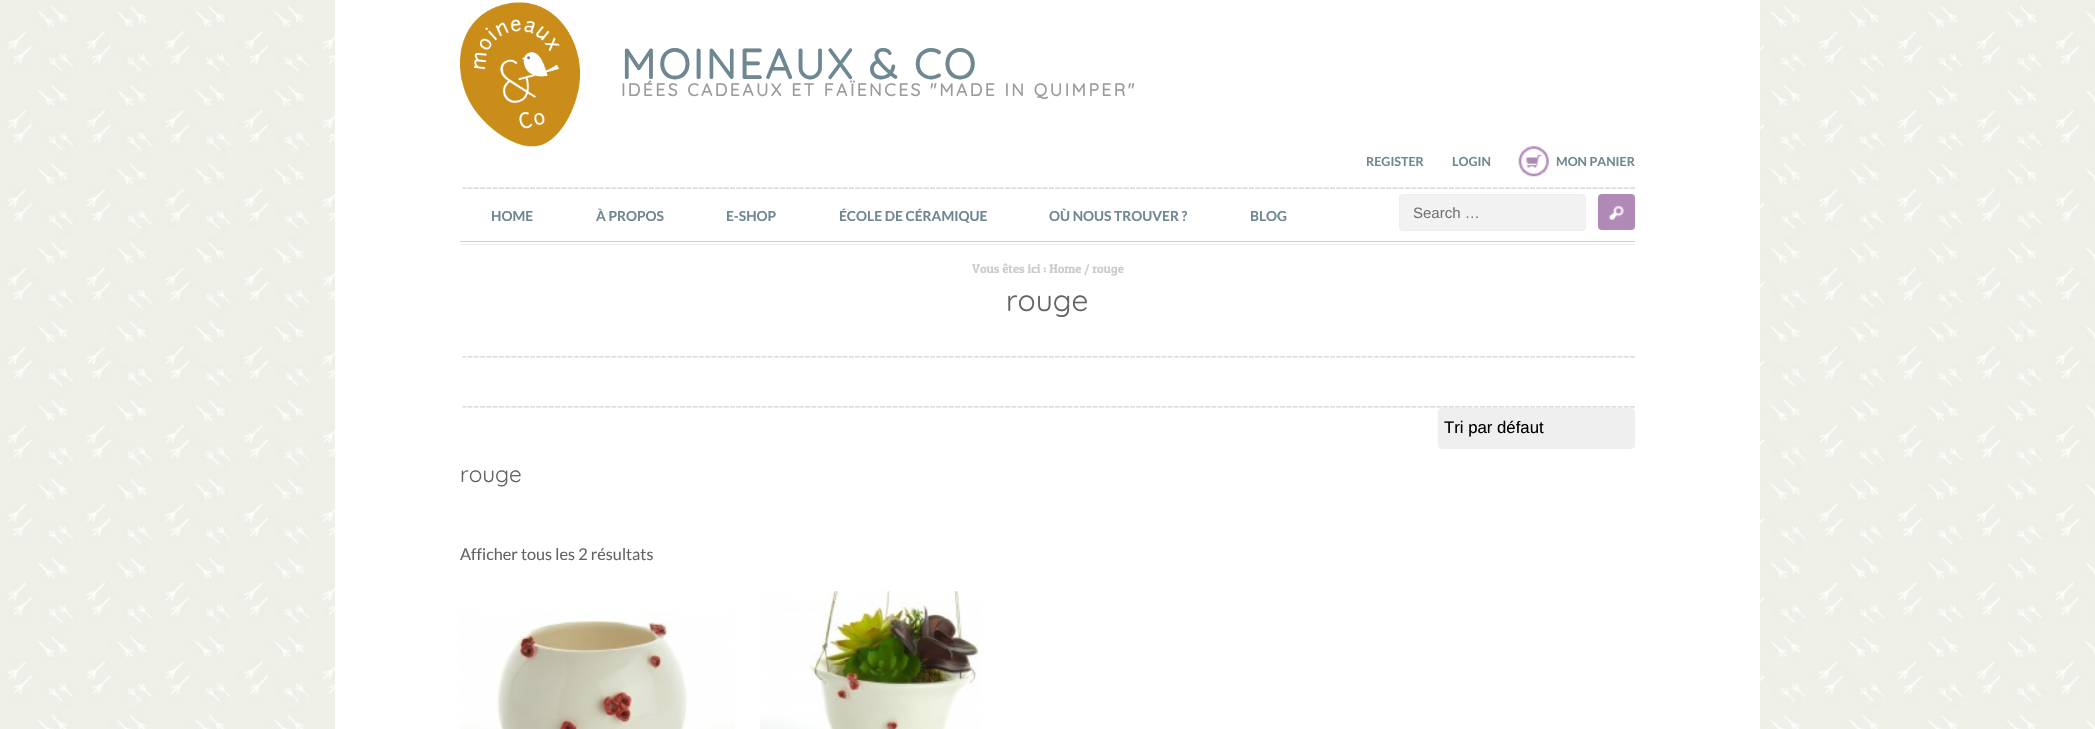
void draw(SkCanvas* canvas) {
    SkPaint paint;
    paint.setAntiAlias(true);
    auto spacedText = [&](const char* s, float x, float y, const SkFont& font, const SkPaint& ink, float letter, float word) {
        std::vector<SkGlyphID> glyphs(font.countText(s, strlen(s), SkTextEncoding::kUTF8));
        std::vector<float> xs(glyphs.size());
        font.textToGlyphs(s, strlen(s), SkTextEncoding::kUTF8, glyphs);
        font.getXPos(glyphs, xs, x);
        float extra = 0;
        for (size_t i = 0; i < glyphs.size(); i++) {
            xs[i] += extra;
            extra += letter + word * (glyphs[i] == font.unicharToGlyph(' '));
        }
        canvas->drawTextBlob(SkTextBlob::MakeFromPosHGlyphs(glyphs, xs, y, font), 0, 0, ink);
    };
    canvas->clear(0xFFFFFFFF);
    canvas->drawImageRect(SkImages::DeferredFromEncodedData(SkData::MakeFromFileName("img1.png")), SkRect::MakeXYWH(0, 0, 2095, 729), SkSamplingOptions());
    paint.setColor(0xFFFFFFFF);
    canvas->drawRect(SkRect::MakeXYWH(335, 0, 1425, 729), paint);
    canvas->drawImageRect(SkImages::DeferredFromEncodedData(SkData::MakeFromFileName("img2.png")), SkRect::MakeXYWH(460, 2, 120, 145), SkSamplingOptions());
    SkFont font1(fontMgr->matchFamilyStyle("Quicksand", SkFontStyle::Bold()), 41.9f);
    font1.setSubpixel(true);
    paint.setColor(0xFF6E8791);
    spacedText("MOINEAUX & CO", 621, 79, font1, paint, 2.5f, 0);
    SkFont font2(fontMgr->matchFamilyStyle("Quicksand", SkFontStyle::Bold()), 17.4f);
    font2.setSubpixel(true);
    paint.setColor(0xFF9B9B9B);
    spacedText("IDÉES CADEAUX ET FAÏENCES \"MADE IN QUIMPER\"", 621, 96, font2, paint, 2.5f, 0);
    SkFont font3(fontMgr->matchFamilyStyle("Lato", SkFontStyle::Bold()), 12.5f);
    font3.setSubpixel(true);
    paint.setColor(0xFF6E8791);
    canvas->drawString("REGISTER", 1366, 166, font3, paint);
    canvas->drawString("LOGIN", 1452, 166, font3, paint);
    canvas->drawImageRect(SkImages::DeferredFromEncodedData(SkData::MakeFromFileName("img3.png")), SkRect::MakeXYWH(1518, 146, 31, 31), SkSamplingOptions());
    canvas->drawString("MON PANIER", 1556, 166, font3, paint);
    canvas->drawImageRect(SkImages::DeferredFromEncodedData(SkData::MakeFromFileName("img4.png")), SkRect::MakeXYWH(462, 187, 1173, 2), SkSamplingOptions());
    paint.setColor(0xFFCECECE);
    canvas->drawRect(SkRect::MakeXYWH(460, 241, 1175, 1), paint);
    SkFont font4(fontMgr->matchFamilyStyle("Lato", SkFontStyle::Bold()), 13.75f);
    font4.setSubpixel(true);
    paint.setColor(0xFF6E8791);
    canvas->drawString("HOME", 491, 221, font4, paint);
    canvas->drawString("À PROPOS", 596, 221, font4, paint);
    canvas->drawString("E-SHOP", 726, 221, font4, paint);
    canvas->drawString("ÉCOLE DE CÉRAMIQUE", 839, 221, font4, paint);
    canvas->drawString("OÙ NOUS TROUVER ?", 1049, 221, font4, paint);
    canvas->drawString("BLOG", 1250, 221, font4, paint);
    paint.setColor(0xFFF2F2F2);
    canvas->drawRoundRect(SkRect::MakeXYWH(1399.5f, 194.5f, 186, 36), 3.5f, 3.5f, paint);
    paint.setStyle(SkPaint::kStroke_Style);
    paint.setStrokeWidth(1);
    paint.setColor(0xFFEEEEEE);
    canvas->drawRoundRect(SkRect::MakeXYWH(1399.5f, 194.5f, 186, 36), 3.5f, 3.5f, paint);
    SkFont font5(fontMgr->matchFamilyStyle("Liberation Sans", SkFontStyle::Normal()), 15);
    font5.setSubpixel(true);
    paint.setStyle(SkPaint::kFill_Style);
    paint.setColor(0xFF757575);
    canvas->drawString("Search …", 1413, 218, font5, paint);
    paint.setColor(0xFFB089B7);
    canvas->drawRoundRect(SkRect::MakeXYWH(1598, 194, 37, 36), 4, 4, paint);
    canvas->drawImageRect(SkImages::DeferredFromEncodedData(SkData::MakeFromFileName("img5.png")), SkRect::MakeXYWH(1608, 206, 16, 14), SkSamplingOptions());
    paint.setColor(0xFFF1F1F1);
    canvas->drawRect(SkRect::MakeXYWH(460, 244, 1175, 1), paint);
    SkFont font6(fontMgr->matchFamilyStyle("Patua One", SkFontStyle::Normal()), 12.5f);
    font6.setSubpixel(true);
    paint.setColor(0xFFCCCCCC);
    canvas->drawString("Vous êtes ici : Home / rouge", 972, 273, font6, paint);
    SkFont font7(fontMgr->matchFamilyStyle("Quicksand", SkFontStyle::Normal()), 30);
    font7.setSubpixel(true);
    paint.setColor(0xFF636363);
    canvas->drawString("rouge", 1006, 311, font7, paint);
    canvas->drawImageRect(SkImages::DeferredFromEncodedData(SkData::MakeFromFileName("img6.png")), SkRect::MakeXYWH(462, 356, 1173, 2), SkSamplingOptions());
    paint.setColor(0xFFEFEFEF);
    canvas->drawRoundRect(SkRect::MakeXYWH(1439, 409, 195, 39), 2.5f, 2.5f, paint);
    paint.setStyle(SkPaint::kStroke_Style);
    paint.setColor(0xFFEEEEEE);
    canvas->drawRoundRect(SkRect::MakeXYWH(1438.5f, 408.5f, 196, 40), 3.5f, 3.5f, paint);
    SkFont font8(fontMgr->matchFamilyStyle("Liberation Sans", SkFontStyle::Normal()), 16.75f);
    font8.setSubpixel(true);
    paint.setStyle(SkPaint::kFill_Style);
    paint.setColor(0xFF000000);
    canvas->drawString("Tri par défaut", 1444, 433, font8, paint);
    canvas->drawImageRect(SkImages::DeferredFromEncodedData(SkData::MakeFromFileName("img6.png")), SkRect::MakeXYWH(462, 406, 1173, 2), SkSamplingOptions());
    SkFont font9(fontMgr->matchFamilyStyle("Quicksand", SkFontStyle::Normal()), 22.5f);
    font9.setSubpixel(true);
    paint.setColor(0xFF636363);
    canvas->drawString("rouge", 460, 482, font9, paint);
    SkFont font10(fontMgr->matchFamilyStyle("Lato", SkFontStyle::Normal()), 16.25f);
    font10.setSubpixel(true);
    canvas->drawString("Afficher tous les 2 résultats", 460, 560, font10, paint);
    canvas->drawImageRect(SkImages::DeferredFromEncodedData(SkData::MakeFromFileName("img7.png")), SkRect::MakeXYWH(460, 611, 275, 118), SkSamplingOptions());
    canvas->drawImageRect(SkImages::DeferredFromEncodedData(SkData::MakeFromFileName("img8.png")), SkRect::MakeXYWH(760, 591, 220, 138), SkSamplingOptions());
}
